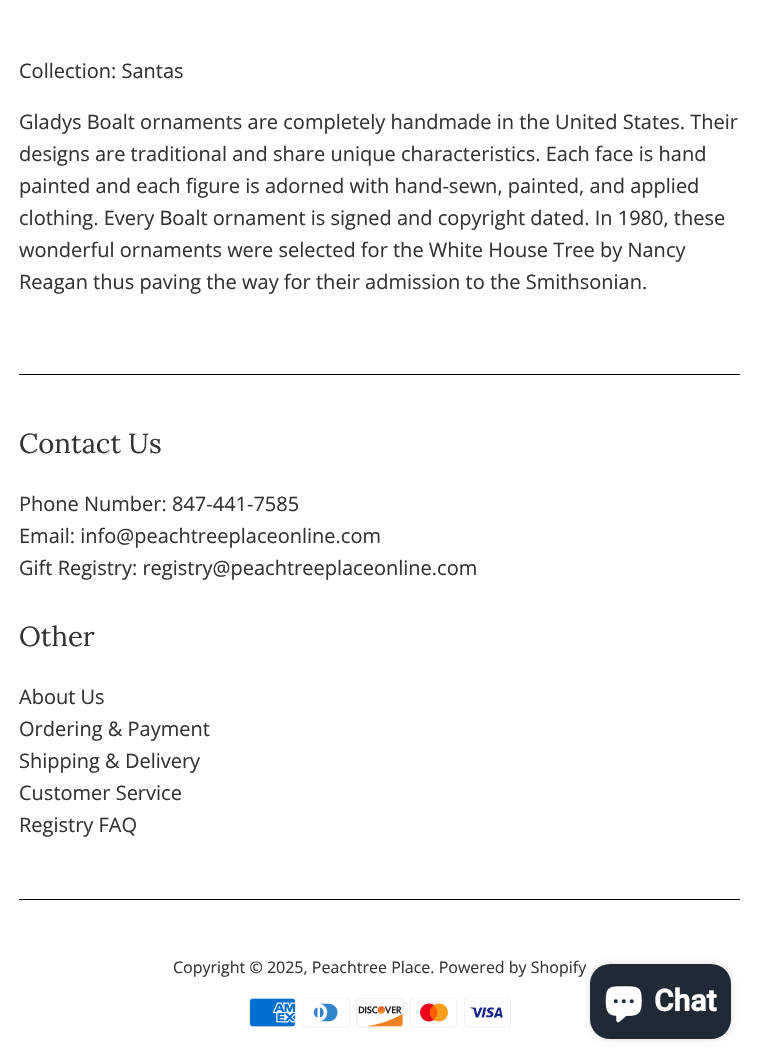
void draw(SkCanvas* canvas) {
    SkPaint paint;
    paint.setAntiAlias(true);
    canvas->clear(0xFFFFFFFF);
    SkFont font1(fontMgr->matchFamilyStyle("Open Sans", SkFontStyle::Normal()), 20);
    font1.setSubpixel(true);
    paint.setColor(0xFF333333);
    canvas->drawString("Collection: Santas", 19, 78, font1, paint);
    canvas->drawString("Gladys Boalt ornaments are completely handmade in the United States. Their", 19, 129, font1, paint);
    canvas->drawString("designs are traditional and share unique characteristics. Each face is hand", 19, 161, font1, paint);
    canvas->drawString("painted and each figure is adorned with hand-sewn, painted, and applied", 19, 193, font1, paint);
    canvas->drawString("clothing. Every Boalt ornament is signed and copyright dated. In 1980, these", 19, 225, font1, paint);
    canvas->drawString("wonderful ornaments were selected for the White House Tree by Nancy", 19, 257, font1, paint);
    canvas->drawString("Reagan thus paving the way for their admission to the Smithsonian.", 19, 289, font1, paint);
    paint.setColor(0xFF000000);
    canvas->drawRect(SkRect::MakeXYWH(19, 374, 721, 1), paint);
    SkFont font2(fontMgr->matchFamilyStyle("Lora", SkFontStyle::Normal()), 27.5f);
    font2.setSubpixel(true);
    paint.setColor(0xFF333333);
    canvas->drawString("Contact Us", 19, 453, font2, paint);
    canvas->drawString("Phone Number: 847-441-7585", 19, 511, font1, paint);
    canvas->drawString("Email: info@peachtreeplaceonline.com", 19, 543, font1, paint);
    canvas->drawString("Gift Registry: registry@peachtreeplaceonline.com", 19, 575, font1, paint);
    canvas->drawString("Other", 19, 646, font2, paint);
    canvas->drawString("About Us", 19, 704, font1, paint);
    canvas->drawString("Ordering & Payment", 19, 736, font1, paint);
    canvas->drawString("Shipping & Delivery", 19, 768, font1, paint);
    canvas->drawString("Customer Service", 19, 800, font1, paint);
    canvas->drawString("Registry FAQ", 19, 832, font1, paint);
    paint.setColor(0xFF000000);
    canvas->drawRect(SkRect::MakeXYWH(19, 899, 721, 1), paint);
    SkFont font3(fontMgr->matchFamilyStyle("Open Sans", SkFontStyle::Normal()), 16);
    font3.setSubpixel(true);
    paint.setColor(0xFF333333);
    canvas->drawString("Copyright © 2025, Peachtree Place. Powered by Shopify", 173, 973, font3, paint);
    canvas->drawImageRect(SkImages::DeferredFromEncodedData(SkData::MakeFromFileName("img1.png")), SkRect::MakeXYWH(249, 998, 47, 30), SkSamplingOptions());
    canvas->drawImageRect(SkImages::DeferredFromEncodedData(SkData::MakeFromFileName("img2.png")), SkRect::MakeXYWH(303, 998, 47, 30), SkSamplingOptions());
    canvas->drawImageRect(SkImages::DeferredFromEncodedData(SkData::MakeFromFileName("img3.png")), SkRect::MakeXYWH(356, 998, 48, 30), SkSamplingOptions());
    canvas->drawImageRect(SkImages::DeferredFromEncodedData(SkData::MakeFromFileName("img4.png")), SkRect::MakeXYWH(410, 998, 48, 30), SkSamplingOptions());
    canvas->drawImageRect(SkImages::DeferredFromEncodedData(SkData::MakeFromFileName("img5.png")), SkRect::MakeXYWH(464, 998, 47, 30), SkSamplingOptions());
    paint.setColor(0x26000000);
    paint.setMaskFilter(SkMaskFilter::MakeBlur(kNormal_SkBlurStyle, 3));
    canvas->drawRoundRect(SkRect::MakeXYWH(590, 964, 141, 75), 20, 20, paint);
    paint.setMaskFilter(nullptr);
    paint.setColor(0xFF202A36);
    canvas->drawRoundRect(SkRect::MakeXYWH(590, 964, 141, 75), 20, 20, paint);
    canvas->drawImageRect(SkImages::DeferredFromEncodedData(SkData::MakeFromFileName("img6.png")), SkRect::MakeXYWH(605, 986, 37, 37), SkSamplingOptions());
    SkFont font4(fontMgr->matchFamilyStyle("Roboto", SkFontStyle::Bold()), 30);
    font4.setSubpixel(true);
    paint.setColor(0xFFFFFFFF);
    canvas->drawString("Chat", 654, 1011, font4, paint);
}
